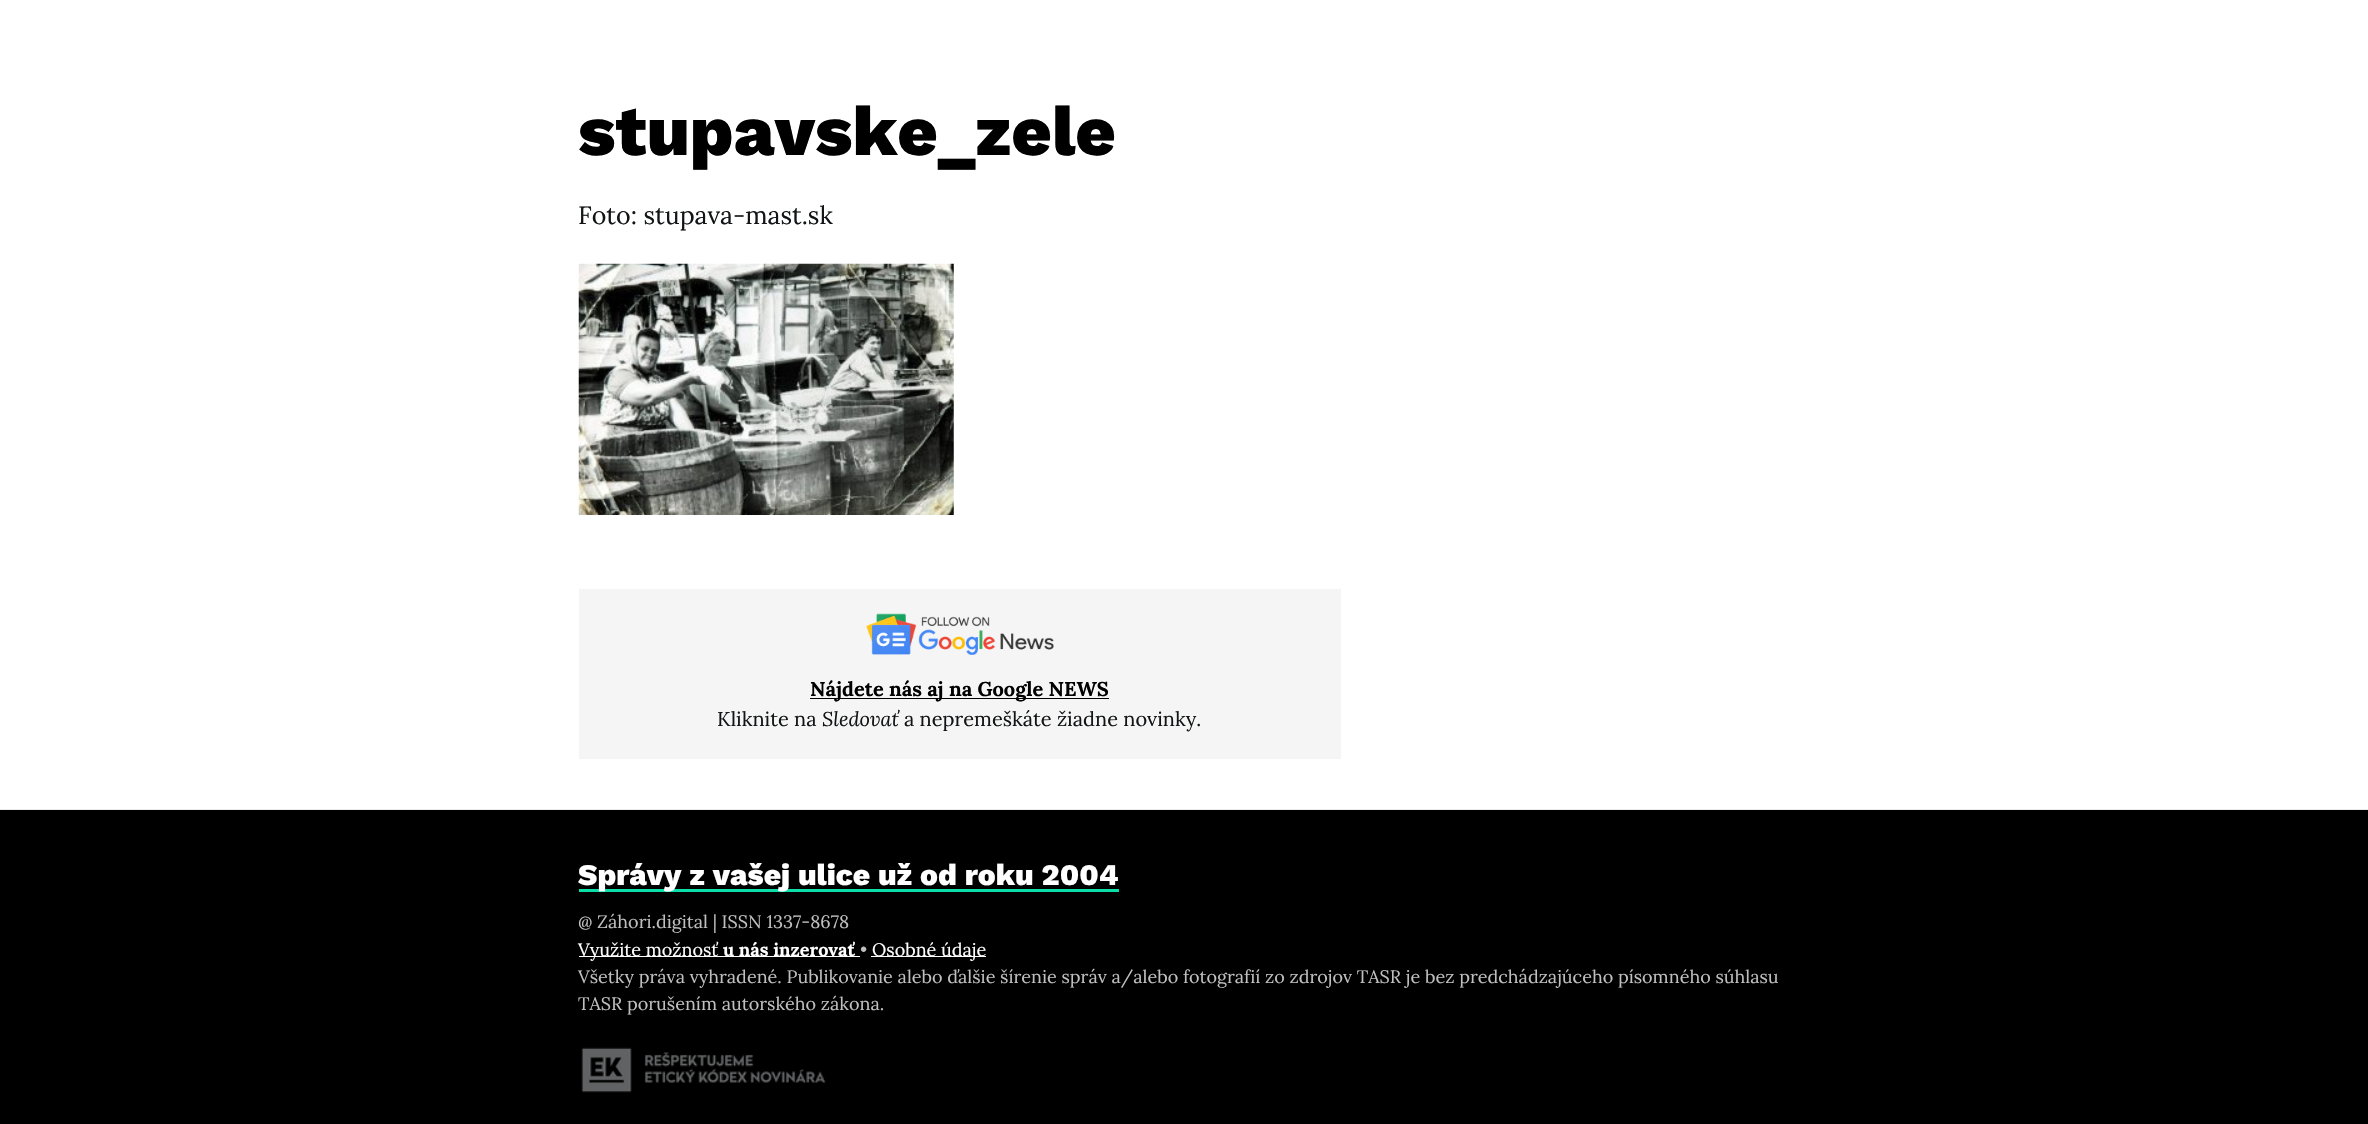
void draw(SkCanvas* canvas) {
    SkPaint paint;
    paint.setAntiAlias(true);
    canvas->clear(0xFFFFFFFF);
    SkFont font1(fontMgr->matchFamilyStyle("Work Sans", SkFontStyle(800, SkFontStyle::kNormal_Width, SkFontStyle::kUpright_Slant)), 70);
    font1.setSubpixel(true);
    paint.setColor(0xFF000000);
    canvas->drawString("stupavske_zele", 578, 155, font1, paint);
    SkFont font2(fontMgr->matchFamilyStyle("Lora", SkFontStyle::Normal()), 25);
    font2.setSubpixel(true);
    paint.setColor(0xFF121416);
    canvas->drawString("Foto: stupava-mast.sk", 578, 224, font2, paint);
    canvas->drawImageRect(SkImages::DeferredFromEncodedData(SkData::MakeFromFileName("img1.png")), SkRect::MakeXYWH(578, 263, 376, 252), SkSamplingOptions());
    paint.setColor(0xFFF5F5F5);
    canvas->drawRect(SkRect::MakeXYWH(579, 589, 762, 170), paint);
    canvas->drawImageRect(SkImages::DeferredFromEncodedData(SkData::MakeFromFileName("img2.png")), SkRect::MakeXYWH(866, 613, 188, 42), SkSamplingOptions());
    paint.setColor(0xFF000000);
    canvas->drawRect(SkRect::MakeXYWH(810, 698, 299, 1), paint);
    SkFont font3(fontMgr->matchFamilyStyle("Lora", SkFontStyle::Bold()), 20);
    font3.setSubpixel(true);
    canvas->drawString("Nájdete nás aj na Google NEWS", 810, 696, font3, paint);
    SkFont font4(fontMgr->matchFamilyStyle("Lora", SkFontStyle::Normal()), 20);
    font4.setSubpixel(true);
    paint.setColor(0xFF121416);
    canvas->drawString("Kliknite na", 717, 726, font4, paint);
    SkFont font5(fontMgr->matchFamilyStyle("Lora", SkFontStyle::Italic()), 20);
    font5.setSubpixel(true);
    canvas->drawString("Sledovať", 822, 726, font5, paint);
    canvas->drawString("a nepremeškáte žiadne novinky.", 904, 726, font4, paint);
    paint.setColor(0xFF000000);
    canvas->drawRect(SkRect::MakeXYWH(0, 810, 2368, 314), paint);
    paint.setColor(0xFFE9ECEF);
    canvas->drawRect(SkRect::MakeXYWH(0, 809, 2368, 1), paint);
    paint.setColor(0xFF0ADEA9);
    canvas->drawRect(SkRect::MakeXYWH(579, 889, 540, 3), paint);
    SkFont font6(fontMgr->matchFamilyStyle("Work Sans", SkFontStyle(800, SkFontStyle::kNormal_Width, SkFontStyle::kUpright_Slant)), 30);
    font6.setSubpixel(true);
    paint.setColor(0xFFFFFFFF);
    canvas->drawString("Správy z vašej ulice už od roku 2004", 578, 885, font6, paint);
    SkFont font7(fontMgr->matchFamilyStyle("Lora", SkFontStyle::Normal()), 18);
    font7.setSubpixel(true);
    paint.setColor(0xFFBFBFBF);
    canvas->drawString("@ Záhori.digital | ISSN 1337-8678", 578, 928, font7, paint);
    paint.setColor(0xFFFFFFFF);
    canvas->drawRect(SkRect::MakeXYWH(579, 956, 281, 1), paint);
    canvas->drawString("Využite možnosť", 578, 956, font7, paint);
    SkFont font8(fontMgr->matchFamilyStyle("Lora", SkFontStyle::Bold()), 18);
    font8.setSubpixel(true);
    canvas->drawString("u nás inzerovať", 723, 956, font8, paint);
    paint.setColor(0xFFBFBFBF);
    canvas->drawString("•", 860, 956, font7, paint);
    paint.setColor(0xFFFFFFFF);
    canvas->drawRect(SkRect::MakeXYWH(871, 956, 115, 1), paint);
    canvas->drawString("Osobné údaje", 872, 956, font7, paint);
    paint.setColor(0xFFBFBFBF);
    canvas->drawString("Všetky práva vyhradené. Publikovanie alebo ďalšie šírenie správ a/alebo fotografií zo zdrojov TASR je bez predchádzajúceho písomného súhlasu", 578, 983, font7, paint);
    canvas->drawString("TASR porušením autorského zákona.", 578, 1010, font7, paint);
    canvas->drawImageRect(SkImages::DeferredFromEncodedData(SkData::MakeFromFileName("img3.png")), SkRect::MakeXYWH(581, 1047, 245, 46), SkSamplingOptions());
}
